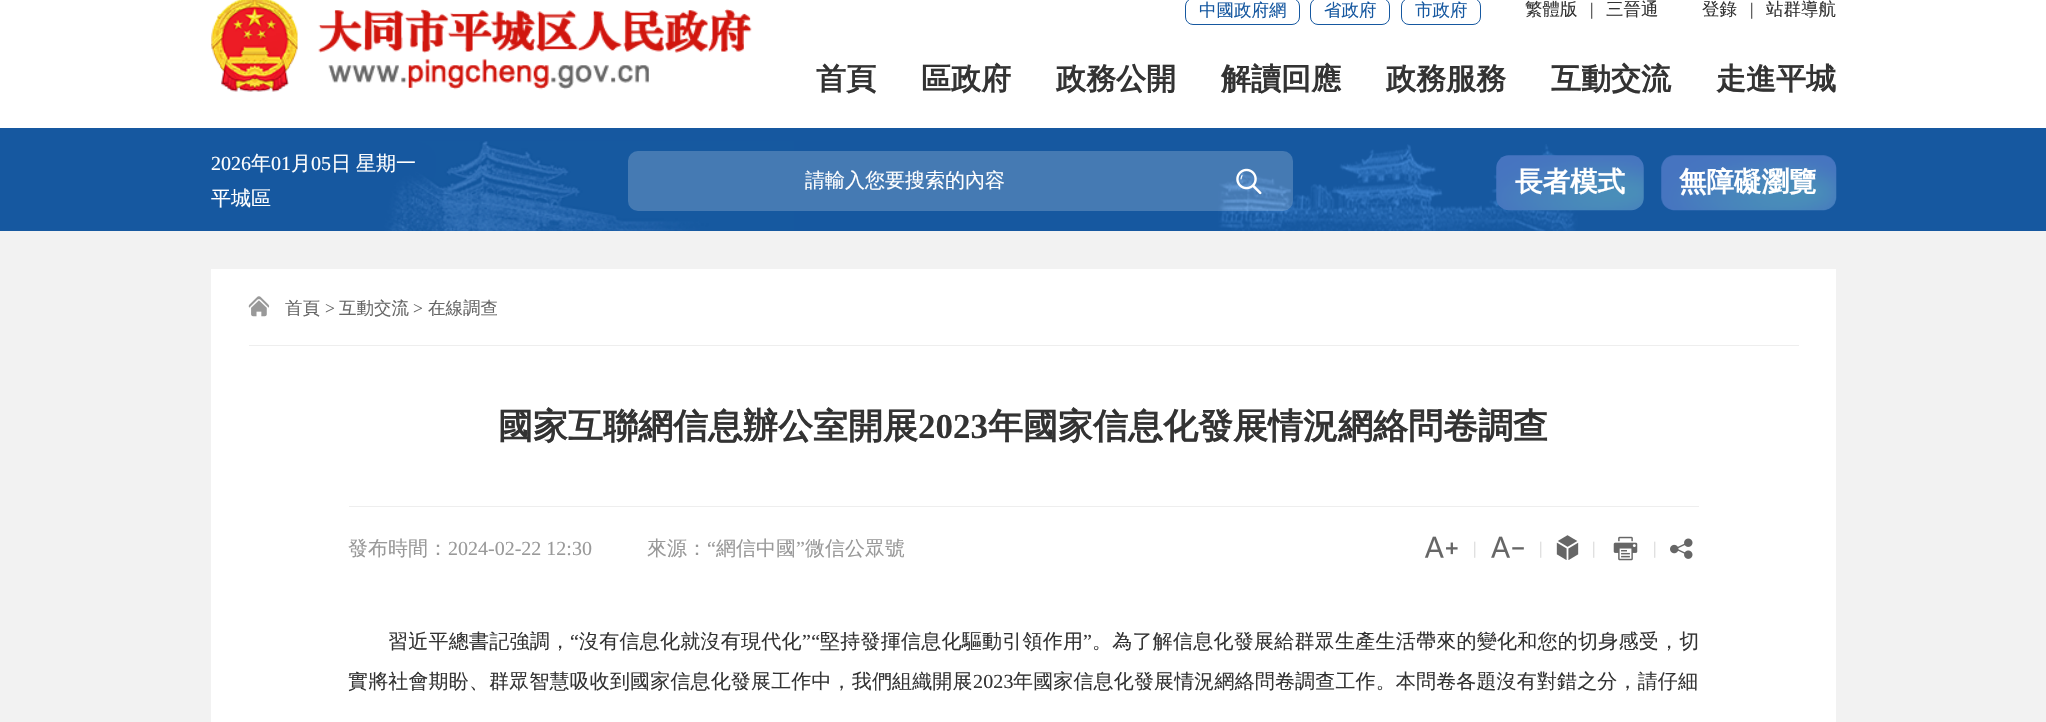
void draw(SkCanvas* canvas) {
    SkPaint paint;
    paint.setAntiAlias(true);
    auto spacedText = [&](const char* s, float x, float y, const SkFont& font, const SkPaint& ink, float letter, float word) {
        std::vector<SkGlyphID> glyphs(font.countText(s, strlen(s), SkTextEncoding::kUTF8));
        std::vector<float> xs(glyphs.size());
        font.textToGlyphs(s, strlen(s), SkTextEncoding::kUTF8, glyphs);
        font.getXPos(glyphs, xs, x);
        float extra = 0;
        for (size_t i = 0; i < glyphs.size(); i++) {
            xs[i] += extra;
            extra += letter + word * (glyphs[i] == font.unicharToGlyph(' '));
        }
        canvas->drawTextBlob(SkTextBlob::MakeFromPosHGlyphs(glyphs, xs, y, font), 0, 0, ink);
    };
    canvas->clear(0xFFFFFFFF);
    canvas->drawImageRect(SkImages::DeferredFromEncodedData(SkData::MakeFromFileName("img1.png")), SkRect::MakeXYWH(211, 0, 541, 92), SkSamplingOptions());
    paint.setStyle(SkPaint::kStroke_Style);
    paint.setStrokeWidth(1);
    paint.setColor(0xFF1658A0);
    canvas->drawRoundRect(SkRect::MakeXYWH(1185.5f, -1.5f, 114, 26), 7.5f, 7.5f, paint);
    SkFont font1(fontMgr->matchFamilyStyle("WenQuanYi Zen Hei", SkFontStyle(500, SkFontStyle::kNormal_Width, SkFontStyle::kUpright_Slant)), 17.5f);
    font1.setSubpixel(true);
    paint.setStyle(SkPaint::kFill_Style);
    canvas->drawString("中國政府網", 1199, 16, font1, paint);
    paint.setStyle(SkPaint::kStroke_Style);
    canvas->drawRoundRect(SkRect::MakeXYWH(1310.5f, -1.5f, 79, 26), 7.5f, 7.5f, paint);
    paint.setStyle(SkPaint::kFill_Style);
    canvas->drawString("省政府", 1324, 16, font1, paint);
    paint.setStyle(SkPaint::kStroke_Style);
    canvas->drawRoundRect(SkRect::MakeXYWH(1401.5f, -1.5f, 79, 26), 7.5f, 7.5f, paint);
    paint.setStyle(SkPaint::kFill_Style);
    canvas->drawString("市政府", 1415, 16, font1, paint);
    paint.setColor(0xFF333333);
    canvas->drawString("繁體版", 1525, 15, font1, paint);
    SkFont font2(fontMgr->matchFamilyStyle("Liberation Serif", SkFontStyle::Normal()), 17.5f);
    font2.setSubpixel(true);
    canvas->drawString("|", 1590, 15, font2, paint);
    canvas->drawString("三晉通", 1606, 15, font1, paint);
    canvas->drawString("登錄", 1702, 15, font1, paint);
    canvas->drawString("|", 1750, 15, font2, paint);
    canvas->drawString("站群導航", 1766, 15, font1, paint);
    SkFont font3(fontMgr->matchFamilyStyle("WenQuanYi Zen Hei", SkFontStyle::Bold()), 30);
    font3.setSubpixel(true);
    canvas->drawString("首頁", 816, 89, font3, paint);
    canvas->drawString("區政府", 921, 89, font3, paint);
    canvas->drawString("政務公開", 1056, 89, font3, paint);
    canvas->drawString("解讀回應", 1221, 89, font3, paint);
    canvas->drawString("政務服務", 1386, 89, font3, paint);
    canvas->drawString("互動交流", 1551, 89, font3, paint);
    canvas->drawString("走進平城", 1716, 89, font3, paint);
    paint.setColor(0xFF1658A0);
    canvas->drawRect(SkRect::MakeXYWH(0, 128, 2046, 103), paint);
    canvas->drawImageRect(SkImages::DeferredFromEncodedData(SkData::MakeFromFileName("img2.png")), SkRect::MakeXYWH(0, 141, 2046, 90), SkSamplingOptions());
    SkFont font4(fontMgr->matchFamilyStyle("Liberation Serif", SkFontStyle::Normal()), 20);
    font4.setSubpixel(true);
    paint.setColor(0xFFFFFFFF);
    canvas->drawString("2026", 211, 170, font4, paint);
    SkFont font5(fontMgr->matchFamilyStyle("WenQuanYi Zen Hei", SkFontStyle(500, SkFontStyle::kNormal_Width, SkFontStyle::kUpright_Slant)), 20);
    font5.setSubpixel(true);
    canvas->drawString("年", 251, 170, font5, paint);
    canvas->drawString("01", 271, 170, font4, paint);
    canvas->drawString("月", 291, 170, font5, paint);
    canvas->drawString("05", 311, 170, font4, paint);
    canvas->drawString("日", 331, 170, font5, paint);
    canvas->drawString("星期一", 356, 170, font5, paint);
    canvas->drawString("平城區", 211, 205, font5, paint);
    paint.setColor(0x33FFFFFF);
    canvas->drawRoundRect(SkRect::MakeXYWH(628, 151, 665, 60), 10, 10, paint);
    paint.setColor(0xFFFFFFFF);
    canvas->drawString("請輸入您要搜索的內容", 805, 187, font5, paint);
    canvas->drawImageRect(SkImages::DeferredFromEncodedData(SkData::MakeFromFileName("img3.png")), SkRect::MakeXYWH(1236, 168, 26, 27), SkSamplingOptions());
    canvas->drawImageRect(SkImages::DeferredFromEncodedData(SkData::MakeFromFileName("img4.png")), SkRect::MakeXYWH(1496, 155, 148, 56), SkSamplingOptions());
    SkFont font6(fontMgr->matchFamilyStyle("WenQuanYi Zen Hei", SkFontStyle::Bold()), 27.5f);
    font6.setSubpixel(true);
    canvas->drawString("長者模式", 1515, 191, font6, paint);
    canvas->drawImageRect(SkImages::DeferredFromEncodedData(SkData::MakeFromFileName("img5.png")), SkRect::MakeXYWH(1661, 155, 176, 56), SkSamplingOptions());
    canvas->drawString("無障礙瀏覽", 1679, 191, font6, paint);
    paint.setColor(0xFFF2F2F2);
    canvas->drawRect(SkRect::MakeXYWH(0, 231, 2046, 491), paint);
    paint.setColor(0xFFFFFFFF);
    canvas->drawRect(SkRect::MakeXYWH(211, 269, 1625, 453), paint);
    paint.setColor(0xFFEEEEEE);
    canvas->drawRect(SkRect::MakeXYWH(249, 345, 1550, 1), paint);
    canvas->drawImageRect(SkImages::DeferredFromEncodedData(SkData::MakeFromFileName("img6.png")), SkRect::MakeXYWH(248, 296, 22, 21), SkSamplingOptions());
    paint.setColor(0xFF666666);
    canvas->drawString("首頁", 285, 314, font1, paint);
    canvas->drawString(">", 325, 314, font2, paint);
    canvas->drawString("互動交流", 339, 314, font1, paint);
    canvas->drawString(">", 413, 314, font2, paint);
    canvas->drawString("在線調查", 428, 314, font1, paint);
    SkFont font7(fontMgr->matchFamilyStyle("WenQuanYi Zen Hei", SkFontStyle::Bold()), 35);
    font7.setSubpixel(true);
    paint.setColor(0xFF333333);
    canvas->drawString("國家互聯網信息辦公室開展", 498, 438, font7, paint);
    SkFont font8(fontMgr->matchFamilyStyle("Liberation Serif", SkFontStyle::Bold()), 35);
    font8.setSubpixel(true);
    canvas->drawString("2023", 918, 438, font8, paint);
    canvas->drawString("年國家信息化發展情況網絡問卷調查", 988, 438, font7, paint);
    paint.setColor(0xFFEEEEEE);
    canvas->drawRect(SkRect::MakeXYWH(349, 506, 1350, 1), paint);
    paint.setColor(0xFF999999);
    canvas->drawString("發布時間：", 348, 555, font5, paint);
    canvas->drawString("2024-02-22 12:30", 448, 555, font4, paint);
    canvas->drawString("來源：", 647, 555, font5, paint);
    canvas->drawString("“", 707, 555, font4, paint);
    canvas->drawString("網信中國", 716, 555, font5, paint);
    canvas->drawString("”", 796, 555, font4, paint);
    canvas->drawString("微信公眾號", 805, 555, font5, paint);
    canvas->drawImageRect(SkImages::DeferredFromEncodedData(SkData::MakeFromFileName("img7.png")), SkRect::MakeXYWH(1424, 536, 34, 22), SkSamplingOptions());
    paint.setColor(0xFFD8D8D8);
    canvas->drawString("|", 1473, 554, font2, paint);
    canvas->drawImageRect(SkImages::DeferredFromEncodedData(SkData::MakeFromFileName("img8.png")), SkRect::MakeXYWH(1491, 536, 33, 22), SkSamplingOptions());
    canvas->drawString("|", 1539, 554, font2, paint);
    canvas->drawImageRect(SkImages::DeferredFromEncodedData(SkData::MakeFromFileName("img9.png")), SkRect::MakeXYWH(1556, 535, 23, 25), SkSamplingOptions());
    canvas->drawString("|", 1592, 554, font2, paint);
    canvas->drawImageRect(SkImages::DeferredFromEncodedData(SkData::MakeFromFileName("img10.png")), SkRect::MakeXYWH(1613, 536, 25, 25), SkSamplingOptions());
    canvas->drawString("|", 1653, 554, font2, paint);
    canvas->drawImageRect(SkImages::DeferredFromEncodedData(SkData::MakeFromFileName("img11.png")), SkRect::MakeXYWH(1670, 538, 23, 21), SkSamplingOptions());
    paint.setColor(0xFF333333);
    spacedText("習近平總書記強調，", 388, 648, font5, paint, 0.25f, 0);
    spacedText("“", 570, 648, font4, paint, 0.25f, 0);
    spacedText("沒有信息化就沒有現代化", 579, 648, font5, paint, 0.25f, 0);
    spacedText("”“", 802, 648, font4, paint, 0.25f, 0);
    spacedText("堅持發揮信息化驅動引領作用", 820, 648, font5, paint, 0.25f, 0);
    spacedText("”", 1083, 648, font4, paint, 0.25f, 0);
    spacedText("。為了解信息化發展給群眾生產生活帶來的變化和您的切身感受，切", 1092, 648, font5, paint, 0.25f, 0);
    spacedText("實將社會期盼、群眾智慧吸收到國家信息化發展工作中，我們組織開展", 348, 688, font5, paint, 0.15f, 0);
    spacedText("2023", 973, 688, font4, paint, 0.15f, 0);
    spacedText("年國家信息化發展情況網絡問卷調查工作。本問卷各題沒有對錯之分，請仔細", 1013, 688, font5, paint, 0.15f, 0);
}
